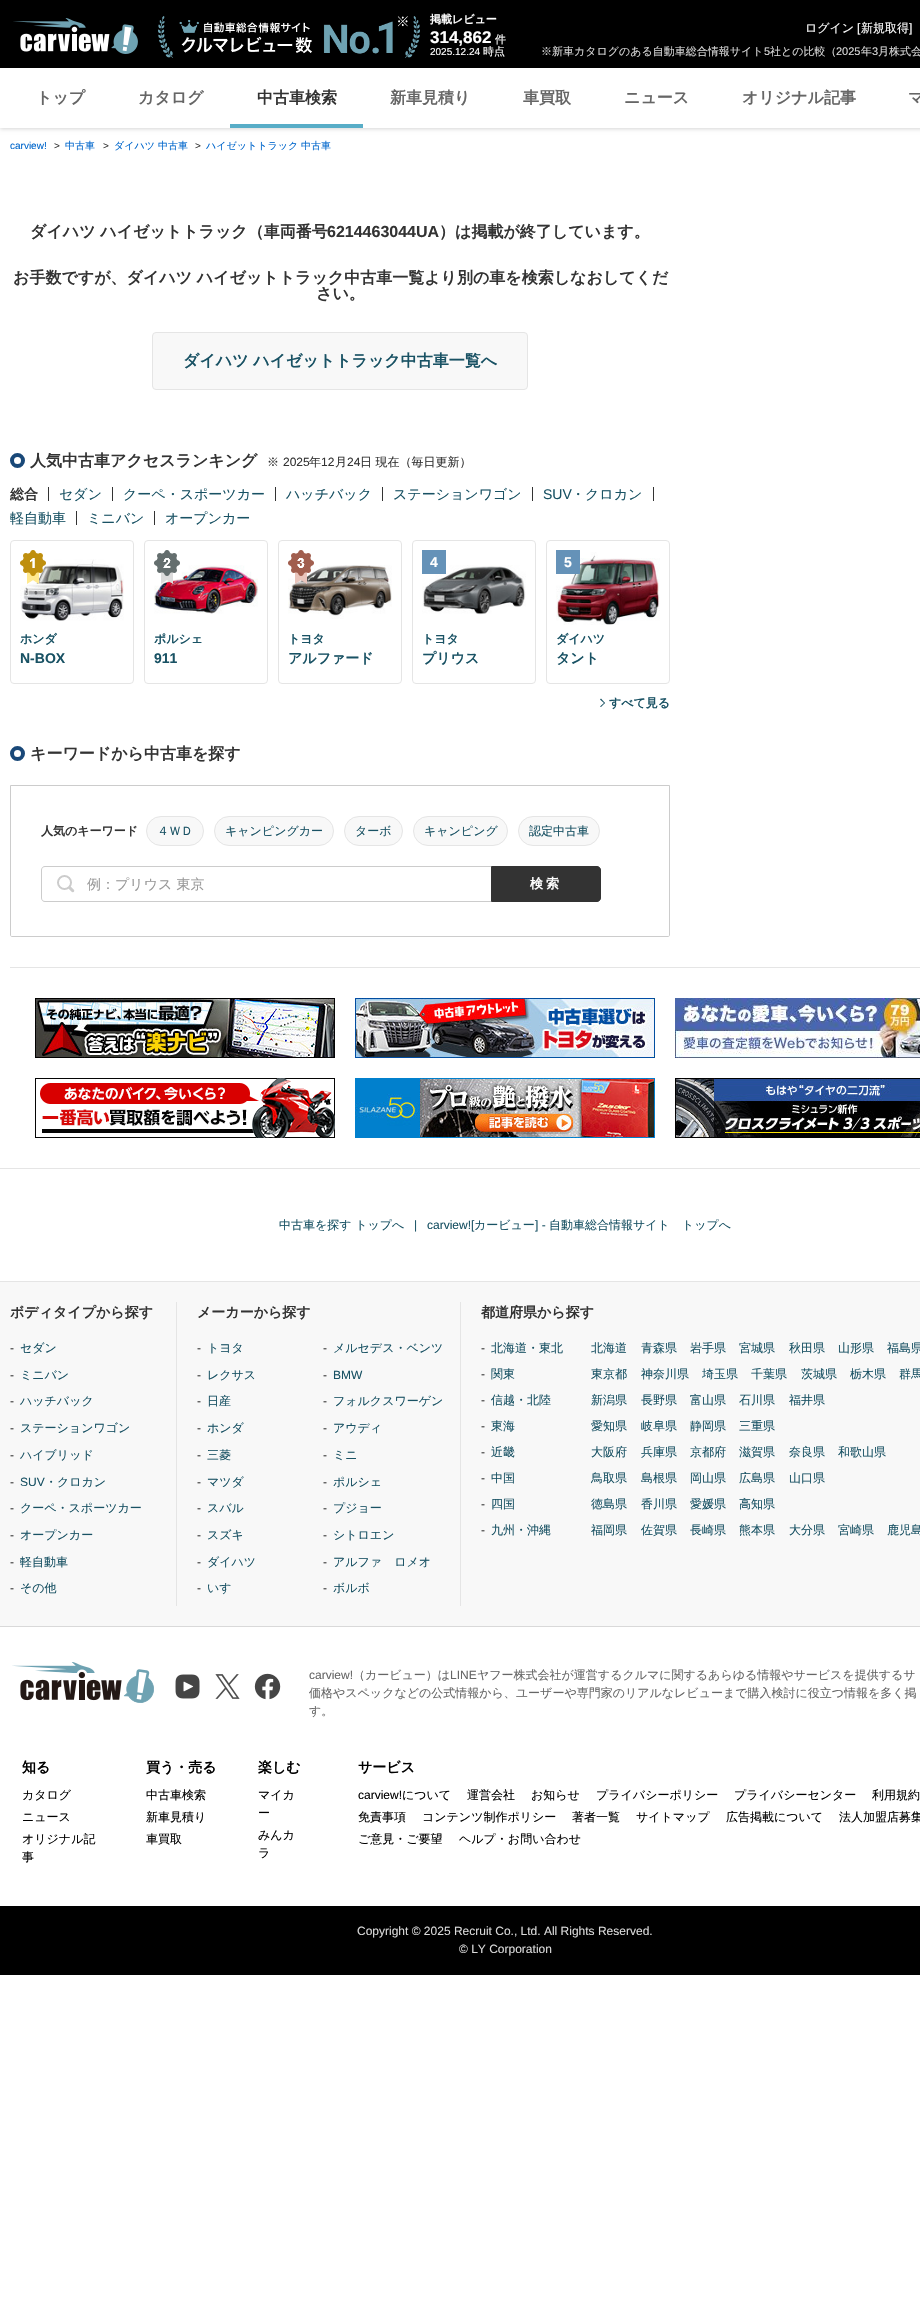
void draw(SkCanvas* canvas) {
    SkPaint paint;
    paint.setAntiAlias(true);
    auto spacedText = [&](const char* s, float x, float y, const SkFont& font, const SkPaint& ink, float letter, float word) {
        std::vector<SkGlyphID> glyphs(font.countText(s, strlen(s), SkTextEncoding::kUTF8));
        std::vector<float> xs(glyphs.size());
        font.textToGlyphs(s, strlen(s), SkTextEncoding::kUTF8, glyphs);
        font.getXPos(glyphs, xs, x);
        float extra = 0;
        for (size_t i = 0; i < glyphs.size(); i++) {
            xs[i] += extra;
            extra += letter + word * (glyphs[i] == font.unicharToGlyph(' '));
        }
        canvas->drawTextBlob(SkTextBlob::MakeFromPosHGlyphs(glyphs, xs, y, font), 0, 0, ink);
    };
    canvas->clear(0xFFFFFFFF);
    paint.setColor(0xFF000000);
    canvas->drawRect(SkRect::MakeXYWH(0, 0, 920, 68), paint);
    canvas->drawImageRect(SkImages::DeferredFromEncodedData(SkData::MakeFromFileName("img1.png")), SkRect::MakeXYWH(13, 18, 125, 36), SkSamplingOptions());
    SkFont font1(fontMgr->matchFamilyStyle("WenQuanYi Zen Hei", SkFontStyle::Bold()), 11);
    font1.setSubpixel(true);
    paint.setColor(0xFFFFFFFF);
    canvas->drawString("掲載レビュー", 430, 23, font1, paint);
    SkFont font2(fontMgr->matchFamilyStyle("Liberation Sans", SkFontStyle::Bold()), 17);
    font2.setSubpixel(true);
    canvas->drawString("314,862", 430, 43, font2, paint);
    SkFont font3(fontMgr->matchFamilyStyle("WenQuanYi Zen Hei", SkFontStyle(500, SkFontStyle::kNormal_Width, SkFontStyle::kUpright_Slant)), 11);
    font3.setSubpixel(true);
    canvas->drawString("件", 495, 43, font3, paint);
    SkFont font4(fontMgr->matchFamilyStyle("Liberation Sans", SkFontStyle::Normal()), 10);
    font4.setSubpixel(true);
    canvas->drawString("2025.12.24", 430, 55, font4, paint);
    canvas->drawString("時点", 483, 55, font3, paint);
    SkFont font5(fontMgr->matchFamilyStyle("WenQuanYi Zen Hei", SkFontStyle(500, SkFontStyle::kNormal_Width, SkFontStyle::kUpright_Slant)), 12);
    font5.setSubpixel(true);
    canvas->drawString("ログイン", 805, 32, font5, paint);
    SkFont font6(fontMgr->matchFamilyStyle("Liberation Sans", SkFontStyle::Normal()), 12);
    font6.setSubpixel(true);
    canvas->drawString("[", 857, 32, font6, paint);
    canvas->drawString("新規取得", 861, 32, font5, paint);
    canvas->drawString("]", 909, 32, font6, paint);
    canvas->drawImageRect(SkImages::DeferredFromEncodedData(SkData::MakeFromFileName("img2.png")), SkRect::MakeXYWH(158, 16, 262, 42), SkSamplingOptions());
    paint.setColor(0xFFD9D9D9);
    canvas->drawString("※新車カタログのある自動車総合情報サイト", 541, 55, font3, paint);
    SkFont font7(fontMgr->matchFamilyStyle("Liberation Sans", SkFontStyle::Normal()), 11);
    font7.setSubpixel(true);
    canvas->drawString("5", 764, 55, font7, paint);
    canvas->drawString("社との比較（", 770, 55, font3, paint);
    canvas->drawString("2025", 836, 55, font7, paint);
    canvas->drawString("年", 861, 55, font3, paint);
    canvas->drawString("3", 872, 55, font7, paint);
    canvas->drawString("月株式会", 878, 55, font3, paint);
    canvas->save();
    canvas->clipPath(SkPathBuilder(SkPathFillType::kEvenOdd).moveTo(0, 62).lineTo(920, 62).lineTo(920, 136).lineTo(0, 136).close().moveTo(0, 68).lineTo(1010, 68).lineTo(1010, 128).lineTo(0, 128).close().detach(), true);
    paint.setColor(0x29000000);
    paint.setMaskFilter(SkMaskFilter::MakeBlur(kNormal_SkBlurStyle, 2));
    canvas->drawRect(SkRect::MakeXYWH(0, 69, 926, 60), paint);
    paint.setMaskFilter(nullptr);
    canvas->restore();
    SkFont font8(fontMgr->matchFamilyStyle("WenQuanYi Zen Hei", SkFontStyle::Bold()), 16);
    font8.setSubpixel(true);
    paint.setColor(0xFF666666);
    canvas->drawString("トップ", 36, 103, font8, paint);
    canvas->drawString("カタログ", 138, 103, font8, paint);
    paint.setColor(0xFF58ADC7);
    canvas->drawRect(SkRect::MakeXYWH(230, 124, 133, 4), paint);
    paint.setColor(0xFF333333);
    canvas->drawString("中古車検索", 257, 103, font8, paint);
    paint.setColor(0xFF666666);
    canvas->drawString("新車見積り", 390, 103, font8, paint);
    canvas->drawString("車買取", 523, 103, font8, paint);
    canvas->drawString("ニュース", 624, 103, font8, paint);
    canvas->drawString("オリジナル記事", 742, 103, font8, paint);
    canvas->drawString("マ", 908, 103, font8, paint);
    paint.setColor(0xFF0066CC);
    canvas->drawString("carview!", 10, 149, font4, paint);
    paint.setColor(0xFF333333);
    canvas->drawString(">", 54, 149, font4, paint);
    SkFont font9(fontMgr->matchFamilyStyle("WenQuanYi Zen Hei", SkFontStyle(500, SkFontStyle::kNormal_Width, SkFontStyle::kUpright_Slant)), 10);
    font9.setSubpixel(true);
    paint.setColor(0xFF0066CC);
    canvas->drawString("中古車", 65, 149, font9, paint);
    paint.setColor(0xFF333333);
    canvas->drawString(">", 103, 149, font4, paint);
    paint.setColor(0xFF0066CC);
    canvas->drawString("ダイハツ 中古車", 114, 149, font9, paint);
    paint.setColor(0xFF333333);
    canvas->drawString(">", 195, 149, font4, paint);
    paint.setColor(0xFF0066CC);
    canvas->drawString("ハイゼットトラック 中古車", 206, 149, font9, paint);
    paint.setColor(0xFF333333);
    canvas->drawString("ダイハツ ハイゼットトラック（車両番号", 30, 237, font8, paint);
    SkFont font10(fontMgr->matchFamilyStyle("Liberation Sans", SkFontStyle::Bold()), 16);
    font10.setSubpixel(true);
    canvas->drawString("6214463044UA", 327, 237, font10, paint);
    canvas->drawString("）は掲載が終了しています。", 439, 237, font8, paint);
    canvas->drawString("お手数ですが、ダイハツ ハイゼットトラック中古車一覧より別の車を検索しなおしてくだ", 13, 283, font8, paint);
    canvas->drawString("さい。", 316, 299, font8, paint);
    paint.setColor(0xFFF8F8F8);
    canvas->drawRoundRect(SkRect::MakeXYWH(152.5f, 332.5f, 375, 57), 3.5f, 3.5f, paint);
    paint.setStyle(SkPaint::kStroke_Style);
    paint.setStrokeWidth(1);
    paint.setColor(0xFFE5E5E5);
    canvas->drawRoundRect(SkRect::MakeXYWH(152.5f, 332.5f, 375, 57), 3.5f, 3.5f, paint);
    paint.setStyle(SkPaint::kFill_Style);
    paint.setColor(0xFF195264);
    canvas->drawString("ダイハツ ハイゼットトラック中古車一覧へ", 183, 366, font8, paint);
    paint.setStyle(SkPaint::kStroke_Style);
    paint.setStrokeWidth(4);
    paint.setColor(0xFF194878);
    canvas->drawCircle(17.5f, 460.5f, 5.5f, paint);
    paint.setStyle(SkPaint::kFill_Style);
    paint.setColor(0xFF333333);
    canvas->drawString("人気中古車アクセスランキング", 30, 466, font8, paint);
    canvas->drawString("※", 267, 466, font5, paint);
    canvas->drawString("2025", 283, 466, font6, paint);
    canvas->drawString("年", 309, 466, font5, paint);
    canvas->drawString("12", 321, 466, font6, paint);
    canvas->drawString("月", 335, 466, font5, paint);
    canvas->drawString("24", 347, 466, font6, paint);
    canvas->drawString("日 現在（毎日更新）", 360, 466, font5, paint);
    canvas->drawRect(SkRect::MakeXYWH(48, 487, 1, 14), paint);
    SkFont font11(fontMgr->matchFamilyStyle("WenQuanYi Zen Hei", SkFontStyle::Bold()), 14);
    font11.setSubpixel(true);
    canvas->drawString("総合", 10, 499, font11, paint);
    canvas->drawRect(SkRect::MakeXYWH(112, 487, 1, 14), paint);
    SkFont font12(fontMgr->matchFamilyStyle("WenQuanYi Zen Hei", SkFontStyle(500, SkFontStyle::kNormal_Width, SkFontStyle::kUpright_Slant)), 14);
    font12.setSubpixel(true);
    paint.setColor(0xFF195264);
    canvas->drawString("セダン", 59, 499, font12, paint);
    paint.setColor(0xFF333333);
    canvas->drawRect(SkRect::MakeXYWH(275, 487, 1, 14), paint);
    paint.setColor(0xFF195264);
    canvas->drawString("クーペ・スポーツカー", 123, 499, font12, paint);
    paint.setColor(0xFF333333);
    canvas->drawRect(SkRect::MakeXYWH(382, 487, 1, 14), paint);
    paint.setColor(0xFF195264);
    canvas->drawString("ハッチバック", 286, 499, font12, paint);
    paint.setColor(0xFF333333);
    canvas->drawRect(SkRect::MakeXYWH(532, 487, 1, 14), paint);
    paint.setColor(0xFF195264);
    canvas->drawString("ステーションワゴン", 393, 499, font12, paint);
    paint.setColor(0xFF333333);
    canvas->drawRect(SkRect::MakeXYWH(653, 487, 1, 14), paint);
    SkFont font13(fontMgr->matchFamilyStyle("Liberation Sans", SkFontStyle::Normal()), 14);
    font13.setSubpixel(true);
    paint.setColor(0xFF195264);
    canvas->drawString("SUV", 543, 499, font13, paint);
    canvas->drawString("・クロカン", 571, 499, font12, paint);
    paint.setColor(0xFF333333);
    canvas->drawRect(SkRect::MakeXYWH(76, 511, 1, 14), paint);
    paint.setColor(0xFF195264);
    canvas->drawString("軽自動車", 10, 523, font12, paint);
    paint.setColor(0xFF333333);
    canvas->drawRect(SkRect::MakeXYWH(154, 511, 1, 14), paint);
    paint.setColor(0xFF195264);
    canvas->drawString("ミニバン", 87, 523, font12, paint);
    canvas->drawString("オープンカー", 165, 523, font12, paint);
    canvas->drawImageRect(SkImages::DeferredFromEncodedData(SkData::MakeFromFileName("img4.png")), SkRect::MakeXYWH(20, 559, 104, 62), SkSamplingOptions());
    canvas->drawImageRect(SkImages::DeferredFromEncodedData(SkData::MakeFromFileName("img3.png")), SkRect::MakeXYWH(20, 550, 26, 34), SkSamplingOptions());
    paint.setStyle(SkPaint::kStroke_Style);
    paint.setStrokeWidth(1);
    paint.setColor(0xFFE5E5E5);
    canvas->drawRoundRect(SkRect::MakeXYWH(10.5f, 540.5f, 123, 143), 3.5f, 3.5f, paint);
    SkFont font14(fontMgr->matchFamilyStyle("WenQuanYi Zen Hei", SkFontStyle::Bold()), 12);
    font14.setSubpixel(true);
    paint.setStyle(SkPaint::kFill_Style);
    paint.setColor(0xFF195264);
    canvas->drawString("ホンダ", 20, 643, font14, paint);
    SkFont font15(fontMgr->matchFamilyStyle("Liberation Sans", SkFontStyle::Bold()), 14);
    font15.setSubpixel(true);
    canvas->drawString("N-BOX", 20, 663, font15, paint);
    canvas->drawImageRect(SkImages::DeferredFromEncodedData(SkData::MakeFromFileName("img6.png")), SkRect::MakeXYWH(154, 565, 104, 49), SkSamplingOptions());
    canvas->drawImageRect(SkImages::DeferredFromEncodedData(SkData::MakeFromFileName("img5.png")), SkRect::MakeXYWH(154, 550, 26, 34), SkSamplingOptions());
    paint.setStyle(SkPaint::kStroke_Style);
    paint.setColor(0xFFE5E5E5);
    canvas->drawRoundRect(SkRect::MakeXYWH(144.5f, 540.5f, 123, 143), 3.5f, 3.5f, paint);
    paint.setStyle(SkPaint::kFill_Style);
    paint.setColor(0xFF195264);
    canvas->drawString("ポルシェ", 154, 643, font14, paint);
    canvas->drawString("911", 154, 663, font15, paint);
    canvas->drawImageRect(SkImages::DeferredFromEncodedData(SkData::MakeFromFileName("img8.png")), SkRect::MakeXYWH(288, 565, 104, 54), SkSamplingOptions());
    canvas->drawImageRect(SkImages::DeferredFromEncodedData(SkData::MakeFromFileName("img7.png")), SkRect::MakeXYWH(288, 550, 26, 34), SkSamplingOptions());
    paint.setStyle(SkPaint::kStroke_Style);
    paint.setColor(0xFFE5E5E5);
    canvas->drawRoundRect(SkRect::MakeXYWH(278.5f, 540.5f, 123, 143), 3.5f, 3.5f, paint);
    paint.setStyle(SkPaint::kFill_Style);
    paint.setColor(0xFF195264);
    canvas->drawString("トヨタ", 288, 643, font14, paint);
    canvas->drawString("アルファード", 288, 663, font11, paint);
    canvas->drawImageRect(SkImages::DeferredFromEncodedData(SkData::MakeFromFileName("img9.png")), SkRect::MakeXYWH(422, 565, 104, 50), SkSamplingOptions());
    paint.setColor(0xFF6592B8);
    canvas->drawRect(SkRect::MakeXYWH(422, 550, 24, 24), paint);
    paint.setStyle(SkPaint::kStroke_Style);
    paint.setColor(0xFFE5E5E5);
    canvas->drawRoundRect(SkRect::MakeXYWH(412.5f, 540.5f, 123, 143), 3.5f, 3.5f, paint);
    paint.setStyle(SkPaint::kFill_Style);
    paint.setColor(0xFFFFFFFF);
    canvas->drawString("4", 430, 567, font15, paint);
    paint.setColor(0xFF195264);
    canvas->drawString("トヨタ", 422, 643, font14, paint);
    canvas->drawString("プリウス", 422, 663, font11, paint);
    canvas->drawImageRect(SkImages::DeferredFromEncodedData(SkData::MakeFromFileName("img10.png")), SkRect::MakeXYWH(556, 552, 104, 73), SkSamplingOptions());
    paint.setColor(0xFF6592B8);
    canvas->drawRect(SkRect::MakeXYWH(556, 550, 24, 24), paint);
    paint.setStyle(SkPaint::kStroke_Style);
    paint.setColor(0xFFE5E5E5);
    canvas->drawRoundRect(SkRect::MakeXYWH(546.5f, 540.5f, 123, 143), 3.5f, 3.5f, paint);
    paint.setStyle(SkPaint::kFill_Style);
    paint.setColor(0xFFFFFFFF);
    canvas->drawString("5", 564, 567, font15, paint);
    paint.setColor(0xFF195264);
    canvas->drawString("ダイハツ", 556, 643, font14, paint);
    canvas->drawString("タント", 556, 663, font11, paint);
    canvas->drawPath(SkPathBuilder().moveTo(601, 698.5f).lineTo(605, 703).lineTo(604.5f, 703.5f).lineTo(600, 699.5f).close().detach(), paint);
    canvas->drawPath(SkPathBuilder().moveTo(604.5f, 702.5f).lineTo(605, 703).lineTo(601, 707).lineTo(600, 706.5f).close().detach(), paint);
    canvas->drawString("すべて見る", 609, 707, font14, paint);
    paint.setStyle(SkPaint::kStroke_Style);
    paint.setStrokeWidth(4);
    paint.setColor(0xFF194878);
    canvas->drawCircle(17.5f, 753.5f, 5.5f, paint);
    paint.setStyle(SkPaint::kFill_Style);
    paint.setColor(0xFF333333);
    canvas->drawString("キーワードから中古車を探す", 30, 759, font8, paint);
    paint.setStyle(SkPaint::kStroke_Style);
    paint.setStrokeWidth(1);
    paint.setColor(0xFFCCCCCC);
    canvas->drawPath(SkPathBuilder().moveTo(10.5f, 785.5f).lineTo(669.5f, 785.5f).lineTo(669.5f, 935).cubicTo(669.5f, 936, 669, 936.5f, 668, 936.5f).lineTo(12, 936.5f).cubicTo(11, 936.5f, 10.5f, 936, 10.5f, 935).close().detach(), paint);
    paint.setStyle(SkPaint::kFill_Style);
    paint.setColor(0xFF333333);
    canvas->drawString("人気のキーワード", 41, 835, font14, paint);
    paint.setColor(0xFFF8F8F8);
    canvas->drawRoundRect(SkRect::MakeXYWH(146.5f, 816.5f, 57, 29), 14.5f, 14.5f, paint);
    paint.setStyle(SkPaint::kStroke_Style);
    paint.setColor(0xFFE5E5E5);
    canvas->drawRoundRect(SkRect::MakeXYWH(146.5f, 816.5f, 57, 29), 14.5f, 14.5f, paint);
    paint.setStyle(SkPaint::kFill_Style);
    paint.setColor(0xFF195264);
    canvas->drawString("４ＷＤ", 157, 835, font5, paint);
    paint.setColor(0xFFF8F8F8);
    canvas->drawRoundRect(SkRect::MakeXYWH(214.5f, 816.5f, 119, 29), 14.5f, 14.5f, paint);
    paint.setStyle(SkPaint::kStroke_Style);
    paint.setColor(0xFFE5E5E5);
    canvas->drawRoundRect(SkRect::MakeXYWH(214.5f, 816.5f, 119, 29), 14.5f, 14.5f, paint);
    paint.setStyle(SkPaint::kFill_Style);
    paint.setColor(0xFF195264);
    canvas->drawString("キャンピングカー", 225, 835, font5, paint);
    paint.setColor(0xFFF8F8F8);
    canvas->drawRoundRect(SkRect::MakeXYWH(344.5f, 816.5f, 58, 29), 14.5f, 14.5f, paint);
    paint.setStyle(SkPaint::kStroke_Style);
    paint.setColor(0xFFE5E5E5);
    canvas->drawRoundRect(SkRect::MakeXYWH(344.5f, 816.5f, 58, 29), 14.5f, 14.5f, paint);
    paint.setStyle(SkPaint::kFill_Style);
    paint.setColor(0xFF195264);
    canvas->drawString("ターボ", 355, 835, font5, paint);
    paint.setColor(0xFFF8F8F8);
    canvas->drawRoundRect(SkRect::MakeXYWH(413.5f, 816.5f, 94, 29), 14.5f, 14.5f, paint);
    paint.setStyle(SkPaint::kStroke_Style);
    paint.setColor(0xFFE5E5E5);
    canvas->drawRoundRect(SkRect::MakeXYWH(413.5f, 816.5f, 94, 29), 14.5f, 14.5f, paint);
    paint.setStyle(SkPaint::kFill_Style);
    paint.setColor(0xFF195264);
    canvas->drawString("キャンピング", 424, 835, font5, paint);
    paint.setColor(0xFFF8F8F8);
    canvas->drawRoundRect(SkRect::MakeXYWH(518.5f, 816.5f, 81, 29), 14.5f, 14.5f, paint);
    paint.setStyle(SkPaint::kStroke_Style);
    paint.setColor(0xFFE5E5E5);
    canvas->drawRoundRect(SkRect::MakeXYWH(518.5f, 816.5f, 81, 29), 14.5f, 14.5f, paint);
    paint.setStyle(SkPaint::kFill_Style);
    paint.setColor(0xFF195264);
    canvas->drawString("認定中古車", 529, 835, font5, paint);
    canvas->drawImageRect(SkImages::DeferredFromEncodedData(SkData::MakeFromFileName("img11.png")), SkRect::MakeXYWH(57, 875, 18, 18), SkSamplingOptions());
    paint.setColor(0xFFCCCCCC);
    canvas->drawPath(SkPathBuilder(SkPathFillType::kEvenOdd).moveTo(45, 866).lineTo(491, 866).lineTo(491, 902).lineTo(45, 902).cubicTo(43, 902, 41, 900, 41, 898).lineTo(41, 870).cubicTo(41, 868, 43, 866, 45, 866).close().moveTo(45, 867).lineTo(491, 867).lineTo(491, 901).lineTo(45, 901).cubicTo(43, 901, 42, 900, 42, 898).lineTo(42, 870).cubicTo(42, 868, 43, 867, 45, 867).close().detach(), paint);
    paint.setColor(0xFF999999);
    canvas->drawString("例：プリウス 東京", 87, 889, font12, paint);
    paint.setColor(0xFF333333);
    canvas->drawPath(SkPathBuilder().moveTo(491.5f, 866.5f).lineTo(597, 866.5f).cubicTo(599, 866.5f, 600.5f, 868, 600.5f, 870).lineTo(600.5f, 898).cubicTo(600.5f, 900, 599, 901.5f, 597, 901.5f).lineTo(491.5f, 901.5f).close().detach(), paint);
    paint.setStyle(SkPaint::kStroke_Style);
    canvas->drawPath(SkPathBuilder().moveTo(491.5f, 866.5f).lineTo(597, 866.5f).cubicTo(599, 866.5f, 600.5f, 868, 600.5f, 870).lineTo(600.5f, 898).cubicTo(600.5f, 900, 599, 901.5f, 597, 901.5f).lineTo(491.5f, 901.5f).close().detach(), paint);
    SkFont font16(fontMgr->matchFamilyStyle("WenQuanYi Zen Hei", SkFontStyle::Bold()), 13);
    font16.setSubpixel(true);
    paint.setStyle(SkPaint::kFill_Style);
    paint.setColor(0xFFFFFFFF);
    spacedText("検索", 530, 888, font16, paint, 3, 0);
    paint.setColor(0xFFE5E5E5);
    canvas->drawRect(SkRect::MakeXYWH(10, 967, 910, 1), paint);
    canvas->drawImageRect(SkImages::DeferredFromEncodedData(SkData::MakeFromFileName("img12.png")), SkRect::MakeXYWH(35, 998, 300, 60), SkSamplingOptions());
    canvas->drawImageRect(SkImages::DeferredFromEncodedData(SkData::MakeFromFileName("img13.png")), SkRect::MakeXYWH(355, 998, 300, 60), SkSamplingOptions());
    canvas->drawImageRect(SkImages::DeferredFromEncodedData(SkData::MakeFromFileName("img14.png")), SkRect::MakeXYWH(675, 998, 245, 60), SkSamplingOptions());
    canvas->drawImageRect(SkImages::DeferredFromEncodedData(SkData::MakeFromFileName("img15.png")), SkRect::MakeXYWH(35, 1078, 300, 60), SkSamplingOptions());
    canvas->drawImageRect(SkImages::DeferredFromEncodedData(SkData::MakeFromFileName("img16.png")), SkRect::MakeXYWH(355, 1078, 300, 60), SkSamplingOptions());
    canvas->drawImageRect(SkImages::DeferredFromEncodedData(SkData::MakeFromFileName("img17.png")), SkRect::MakeXYWH(675, 1078, 245, 60), SkSamplingOptions());
    canvas->drawRect(SkRect::MakeXYWH(0, 1168, 920, 1), paint);
    paint.setColor(0xFF195264);
    canvas->drawString("中古車を探す トップへ", 279, 1229, font5, paint);
    canvas->drawString("|", 414, 1229, font6, paint);
    canvas->drawString("carview![", 427, 1229, font6, paint);
    canvas->drawString("カービュー", 474, 1229, font5, paint);
    canvas->drawString("] -", 535, 1229, font6, paint);
    canvas->drawString("自動車総合情報サイト　トップへ", 549, 1229, font5, paint);
    paint.setColor(0xFFF8F8F8);
    canvas->drawRect(SkRect::MakeXYWH(0, 1282, 920, 344), paint);
    paint.setColor(0xFFE5E5E5);
    canvas->drawRect(SkRect::MakeXYWH(0, 1281, 920, 1), paint);
    canvas->drawRect(SkRect::MakeXYWH(176, 1302, 1, 304), paint);
    paint.setColor(0xFF333333);
    canvas->drawString("ボディタイプから探す", 10, 1317, font11, paint);
    canvas->drawString("-", 10, 1352, font6, paint);
    paint.setColor(0xFF195264);
    canvas->drawString("セダン", 20, 1352, font5, paint);
    paint.setColor(0xFF333333);
    canvas->drawString("-", 10, 1379, font6, paint);
    paint.setColor(0xFF195264);
    canvas->drawString("ミニバン", 20, 1379, font5, paint);
    paint.setColor(0xFF333333);
    canvas->drawString("-", 10, 1405, font6, paint);
    paint.setColor(0xFF195264);
    canvas->drawString("ハッチバック", 20, 1405, font5, paint);
    paint.setColor(0xFF333333);
    canvas->drawString("-", 10, 1432, font6, paint);
    paint.setColor(0xFF195264);
    canvas->drawString("ステーションワゴン", 20, 1432, font5, paint);
    paint.setColor(0xFF333333);
    canvas->drawString("-", 10, 1459, font6, paint);
    paint.setColor(0xFF195264);
    canvas->drawString("ハイブリッド", 20, 1459, font5, paint);
    paint.setColor(0xFF333333);
    canvas->drawString("-", 10, 1486, font6, paint);
    paint.setColor(0xFF195264);
    canvas->drawString("SUV", 20, 1486, font6, paint);
    canvas->drawString("・クロカン", 45, 1486, font5, paint);
    paint.setColor(0xFF333333);
    canvas->drawString("-", 10, 1512, font6, paint);
    paint.setColor(0xFF195264);
    canvas->drawString("クーペ・スポーツカー", 20, 1512, font5, paint);
    paint.setColor(0xFF333333);
    canvas->drawString("-", 10, 1539, font6, paint);
    paint.setColor(0xFF195264);
    canvas->drawString("オープンカー", 20, 1539, font5, paint);
    paint.setColor(0xFF333333);
    canvas->drawString("-", 10, 1566, font6, paint);
    paint.setColor(0xFF195264);
    canvas->drawString("軽自動車", 20, 1566, font5, paint);
    paint.setColor(0xFF333333);
    canvas->drawString("-", 10, 1592, font6, paint);
    paint.setColor(0xFF195264);
    canvas->drawString("その他", 20, 1592, font5, paint);
    paint.setColor(0xFFE5E5E5);
    canvas->drawRect(SkRect::MakeXYWH(460, 1302, 1, 304), paint);
    paint.setColor(0xFF333333);
    canvas->drawString("メーカーから探す", 197, 1317, font11, paint);
    canvas->drawString("-", 197, 1352, font6, paint);
    paint.setColor(0xFF195264);
    canvas->drawString("トヨタ", 207, 1352, font5, paint);
    paint.setColor(0xFF333333);
    canvas->drawString("-", 197, 1379, font6, paint);
    paint.setColor(0xFF195264);
    canvas->drawString("レクサス", 207, 1379, font5, paint);
    paint.setColor(0xFF333333);
    canvas->drawString("-", 197, 1405, font6, paint);
    paint.setColor(0xFF195264);
    canvas->drawString("日産", 207, 1405, font5, paint);
    paint.setColor(0xFF333333);
    canvas->drawString("-", 197, 1432, font6, paint);
    paint.setColor(0xFF195264);
    canvas->drawString("ホンダ", 207, 1432, font5, paint);
    paint.setColor(0xFF333333);
    canvas->drawString("-", 197, 1459, font6, paint);
    paint.setColor(0xFF195264);
    canvas->drawString("三菱", 207, 1459, font5, paint);
    paint.setColor(0xFF333333);
    canvas->drawString("-", 197, 1486, font6, paint);
    paint.setColor(0xFF195264);
    canvas->drawString("マツダ", 207, 1486, font5, paint);
    paint.setColor(0xFF333333);
    canvas->drawString("-", 197, 1512, font6, paint);
    paint.setColor(0xFF195264);
    canvas->drawString("スバル", 207, 1512, font5, paint);
    paint.setColor(0xFF333333);
    canvas->drawString("-", 197, 1539, font6, paint);
    paint.setColor(0xFF195264);
    canvas->drawString("スズキ", 207, 1539, font5, paint);
    paint.setColor(0xFF333333);
    canvas->drawString("-", 197, 1566, font6, paint);
    paint.setColor(0xFF195264);
    canvas->drawString("ダイハツ", 207, 1566, font5, paint);
    paint.setColor(0xFF333333);
    canvas->drawString("-", 197, 1592, font6, paint);
    paint.setColor(0xFF195264);
    canvas->drawString("いすゞ", 207, 1592, font5, paint);
    paint.setColor(0xFF333333);
    canvas->drawString("-", 323, 1352, font6, paint);
    paint.setColor(0xFF195264);
    canvas->drawString("メルセデス・ベンツ", 333, 1352, font5, paint);
    paint.setColor(0xFF333333);
    canvas->drawString("-", 323, 1379, font6, paint);
    paint.setColor(0xFF195264);
    canvas->drawString("BMW", 333, 1379, font6, paint);
    paint.setColor(0xFF333333);
    canvas->drawString("-", 323, 1405, font6, paint);
    paint.setColor(0xFF195264);
    canvas->drawString("フォルクスワーゲン", 333, 1405, font5, paint);
    paint.setColor(0xFF333333);
    canvas->drawString("-", 323, 1432, font6, paint);
    paint.setColor(0xFF195264);
    canvas->drawString("アウディ", 333, 1432, font5, paint);
    paint.setColor(0xFF333333);
    canvas->drawString("-", 323, 1459, font6, paint);
    paint.setColor(0xFF195264);
    canvas->drawString("ミニ", 333, 1459, font5, paint);
    paint.setColor(0xFF333333);
    canvas->drawString("-", 323, 1486, font6, paint);
    paint.setColor(0xFF195264);
    canvas->drawString("ポルシェ", 333, 1486, font5, paint);
    paint.setColor(0xFF333333);
    canvas->drawString("-", 323, 1512, font6, paint);
    paint.setColor(0xFF195264);
    canvas->drawString("プジョー", 333, 1512, font5, paint);
    paint.setColor(0xFF333333);
    canvas->drawString("-", 323, 1539, font6, paint);
    paint.setColor(0xFF195264);
    canvas->drawString("シトロエン", 333, 1539, font5, paint);
    paint.setColor(0xFF333333);
    canvas->drawString("-", 323, 1566, font6, paint);
    paint.setColor(0xFF195264);
    canvas->drawString("アルファ　ロメオ", 333, 1566, font5, paint);
    paint.setColor(0xFF333333);
    canvas->drawString("-", 323, 1592, font6, paint);
    paint.setColor(0xFF195264);
    canvas->drawString("ボルボ", 333, 1592, font5, paint);
    paint.setColor(0xFF333333);
    canvas->drawString("都道府県から探す", 481, 1317, font11, paint);
    canvas->drawString("-", 481, 1352, font6, paint);
    paint.setColor(0xFF195264);
    canvas->drawString("北海道・東北", 491, 1352, font5, paint);
    canvas->drawString("北海道", 591, 1352, font5, paint);
    canvas->drawString("青森県", 641, 1352, font5, paint);
    canvas->drawString("岩手県", 690, 1352, font5, paint);
    canvas->drawString("宮城県", 739, 1352, font5, paint);
    canvas->drawString("秋田県", 789, 1352, font5, paint);
    canvas->drawString("山形県", 838, 1352, font5, paint);
    canvas->drawString("福島県", 887, 1352, font5, paint);
    paint.setColor(0xFF333333);
    canvas->drawString("-", 481, 1378, font6, paint);
    paint.setColor(0xFF195264);
    canvas->drawString("関東", 491, 1378, font5, paint);
    canvas->drawString("東京都", 591, 1378, font5, paint);
    canvas->drawString("神奈川県", 641, 1378, font5, paint);
    canvas->drawString("埼玉県", 702, 1378, font5, paint);
    canvas->drawString("千葉県", 751, 1378, font5, paint);
    canvas->drawString("茨城県", 801, 1378, font5, paint);
    canvas->drawString("栃木県", 850, 1378, font5, paint);
    canvas->drawString("群馬", 899, 1378, font5, paint);
    paint.setColor(0xFF333333);
    canvas->drawString("-", 481, 1404, font6, paint);
    paint.setColor(0xFF195264);
    canvas->drawString("信越・北陸", 491, 1404, font5, paint);
    canvas->drawString("新潟県", 591, 1404, font5, paint);
    canvas->drawString("長野県", 641, 1404, font5, paint);
    canvas->drawString("富山県", 690, 1404, font5, paint);
    canvas->drawString("石川県", 739, 1404, font5, paint);
    canvas->drawString("福井県", 789, 1404, font5, paint);
    paint.setColor(0xFF333333);
    canvas->drawString("-", 481, 1430, font6, paint);
    paint.setColor(0xFF195264);
    canvas->drawString("東海", 491, 1430, font5, paint);
    canvas->drawString("愛知県", 591, 1430, font5, paint);
    canvas->drawString("岐阜県", 641, 1430, font5, paint);
    canvas->drawString("静岡県", 690, 1430, font5, paint);
    canvas->drawString("三重県", 739, 1430, font5, paint);
    paint.setColor(0xFF333333);
    canvas->drawString("-", 481, 1456, font6, paint);
    paint.setColor(0xFF195264);
    canvas->drawString("近畿", 491, 1456, font5, paint);
    canvas->drawString("大阪府", 591, 1456, font5, paint);
    canvas->drawString("兵庫県", 641, 1456, font5, paint);
    canvas->drawString("京都府", 690, 1456, font5, paint);
    canvas->drawString("滋賀県", 739, 1456, font5, paint);
    canvas->drawString("奈良県", 789, 1456, font5, paint);
    canvas->drawString("和歌山県", 838, 1456, font5, paint);
    paint.setColor(0xFF333333);
    canvas->drawString("-", 481, 1482, font6, paint);
    paint.setColor(0xFF195264);
    canvas->drawString("中国", 491, 1482, font5, paint);
    canvas->drawString("鳥取県", 591, 1482, font5, paint);
    canvas->drawString("島根県", 641, 1482, font5, paint);
    canvas->drawString("岡山県", 690, 1482, font5, paint);
    canvas->drawString("広島県", 739, 1482, font5, paint);
    canvas->drawString("山口県", 789, 1482, font5, paint);
    paint.setColor(0xFF333333);
    canvas->drawString("-", 481, 1508, font6, paint);
    paint.setColor(0xFF195264);
    canvas->drawString("四国", 491, 1508, font5, paint);
    canvas->drawString("徳島県", 591, 1508, font5, paint);
    canvas->drawString("香川県", 641, 1508, font5, paint);
    canvas->drawString("愛媛県", 690, 1508, font5, paint);
    canvas->drawString("高知県", 739, 1508, font5, paint);
    paint.setColor(0xFF333333);
    canvas->drawString("-", 481, 1534, font6, paint);
    paint.setColor(0xFF195264);
    canvas->drawString("九州・沖縄", 491, 1534, font5, paint);
    canvas->drawString("福岡県", 591, 1534, font5, paint);
    canvas->drawString("佐賀県", 641, 1534, font5, paint);
    canvas->drawString("長崎県", 690, 1534, font5, paint);
    canvas->drawString("熊本県", 739, 1534, font5, paint);
    canvas->drawString("大分県", 789, 1534, font5, paint);
    canvas->drawString("宮崎県", 838, 1534, font5, paint);
    canvas->drawString("鹿児島", 887, 1534, font5, paint);
    paint.setColor(0xFFD9D9D9);
    canvas->drawRect(SkRect::MakeXYWH(0, 1626, 920, 1), paint);
    canvas->drawImageRect(SkImages::DeferredFromEncodedData(SkData::MakeFromFileName("img18.png")), SkRect::MakeXYWH(12, 1662, 142, 41), SkSamplingOptions());
    canvas->drawImageRect(SkImages::DeferredFromEncodedData(SkData::MakeFromFileName("img19.png")), SkRect::MakeXYWH(175, 1674, 25, 25), SkSamplingOptions());
    canvas->drawImageRect(SkImages::DeferredFromEncodedData(SkData::MakeFromFileName("img20.png")), SkRect::MakeXYWH(215, 1674, 25, 25), SkSamplingOptions());
    canvas->drawImageRect(SkImages::DeferredFromEncodedData(SkData::MakeFromFileName("img21.png")), SkRect::MakeXYWH(254, 1673, 27, 27), SkSamplingOptions());
    paint.setColor(0xFF666666);
    canvas->drawString("carview!", 309, 1679, font6, paint);
    canvas->drawString("（カービュー）は", 353, 1679, font5, paint);
    canvas->drawString("LINE", 450, 1679, font6, paint);
    canvas->drawString("ヤフー株式会社が運営するクルマに関するあらゆる情報やサービスを提供するサ", 477, 1679, font5, paint);
    canvas->drawString("価格やスペックなどの公式情報から、ユーザーや専門家のリアルなレビューまで購入検討に役立つ情報を多く掲", 309, 1697, font5, paint);
    canvas->drawString("す。", 309, 1715, font5, paint);
    paint.setColor(0xFF000000);
    canvas->drawString("知る", 22, 1772, font11, paint);
    canvas->drawString("カタログ", 22, 1799, font5, paint);
    canvas->drawString("ニュース", 22, 1821, font5, paint);
    canvas->drawString("オリジナル記", 22, 1843, font5, paint);
    canvas->drawString("事", 22, 1861, font5, paint);
    canvas->drawString("買う・売る", 146, 1772, font11, paint);
    canvas->drawString("中古車検索", 146, 1799, font5, paint);
    canvas->drawString("新車見積り", 146, 1821, font5, paint);
    canvas->drawString("車買取", 146, 1843, font5, paint);
    canvas->drawString("楽しむ", 258, 1772, font11, paint);
    canvas->drawString("マイカ", 258, 1799, font5, paint);
    canvas->drawString("ー", 258, 1817, font5, paint);
    canvas->drawString("みんカ", 258, 1839, font5, paint);
    canvas->drawString("ラ", 258, 1857, font5, paint);
    canvas->drawString("サービス", 358, 1772, font11, paint);
    canvas->drawString("carview!", 358, 1799, font6, paint);
    canvas->drawString("について", 402, 1799, font5, paint);
    canvas->drawString("運営会社", 467, 1799, font5, paint);
    canvas->drawString("お知らせ", 531, 1799, font5, paint);
    canvas->drawString("プライバシーポリシー", 596, 1799, font5, paint);
    canvas->drawString("プライバシーセンター", 734, 1799, font5, paint);
    canvas->drawString("利用規約", 872, 1799, font5, paint);
    canvas->drawString("免責事項", 358, 1821, font5, paint);
    canvas->drawString("コンテンツ制作ポリシー", 422, 1821, font5, paint);
    canvas->drawString("著者一覧", 572, 1821, font5, paint);
    canvas->drawString("サイトマップ", 636, 1821, font5, paint);
    canvas->drawString("広告掲載について", 726, 1821, font5, paint);
    canvas->drawString("法人加盟店募集", 839, 1821, font5, paint);
    canvas->drawString("ご意見・ご要望", 358, 1843, font5, paint);
    canvas->drawString("ヘルプ・お問い合わせ", 459, 1843, font5, paint);
    canvas->drawRect(SkRect::MakeXYWH(0, 1906, 920, 69), paint);
    paint.setColor(0xFFD9D9D9);
    canvas->drawString("Copyright © 2025 Recruit Co., Ltd. All Rights Reserved.", 357, 1935, font6, paint);
    canvas->drawString("© LY Corporation", 459, 1953, font6, paint);
}
